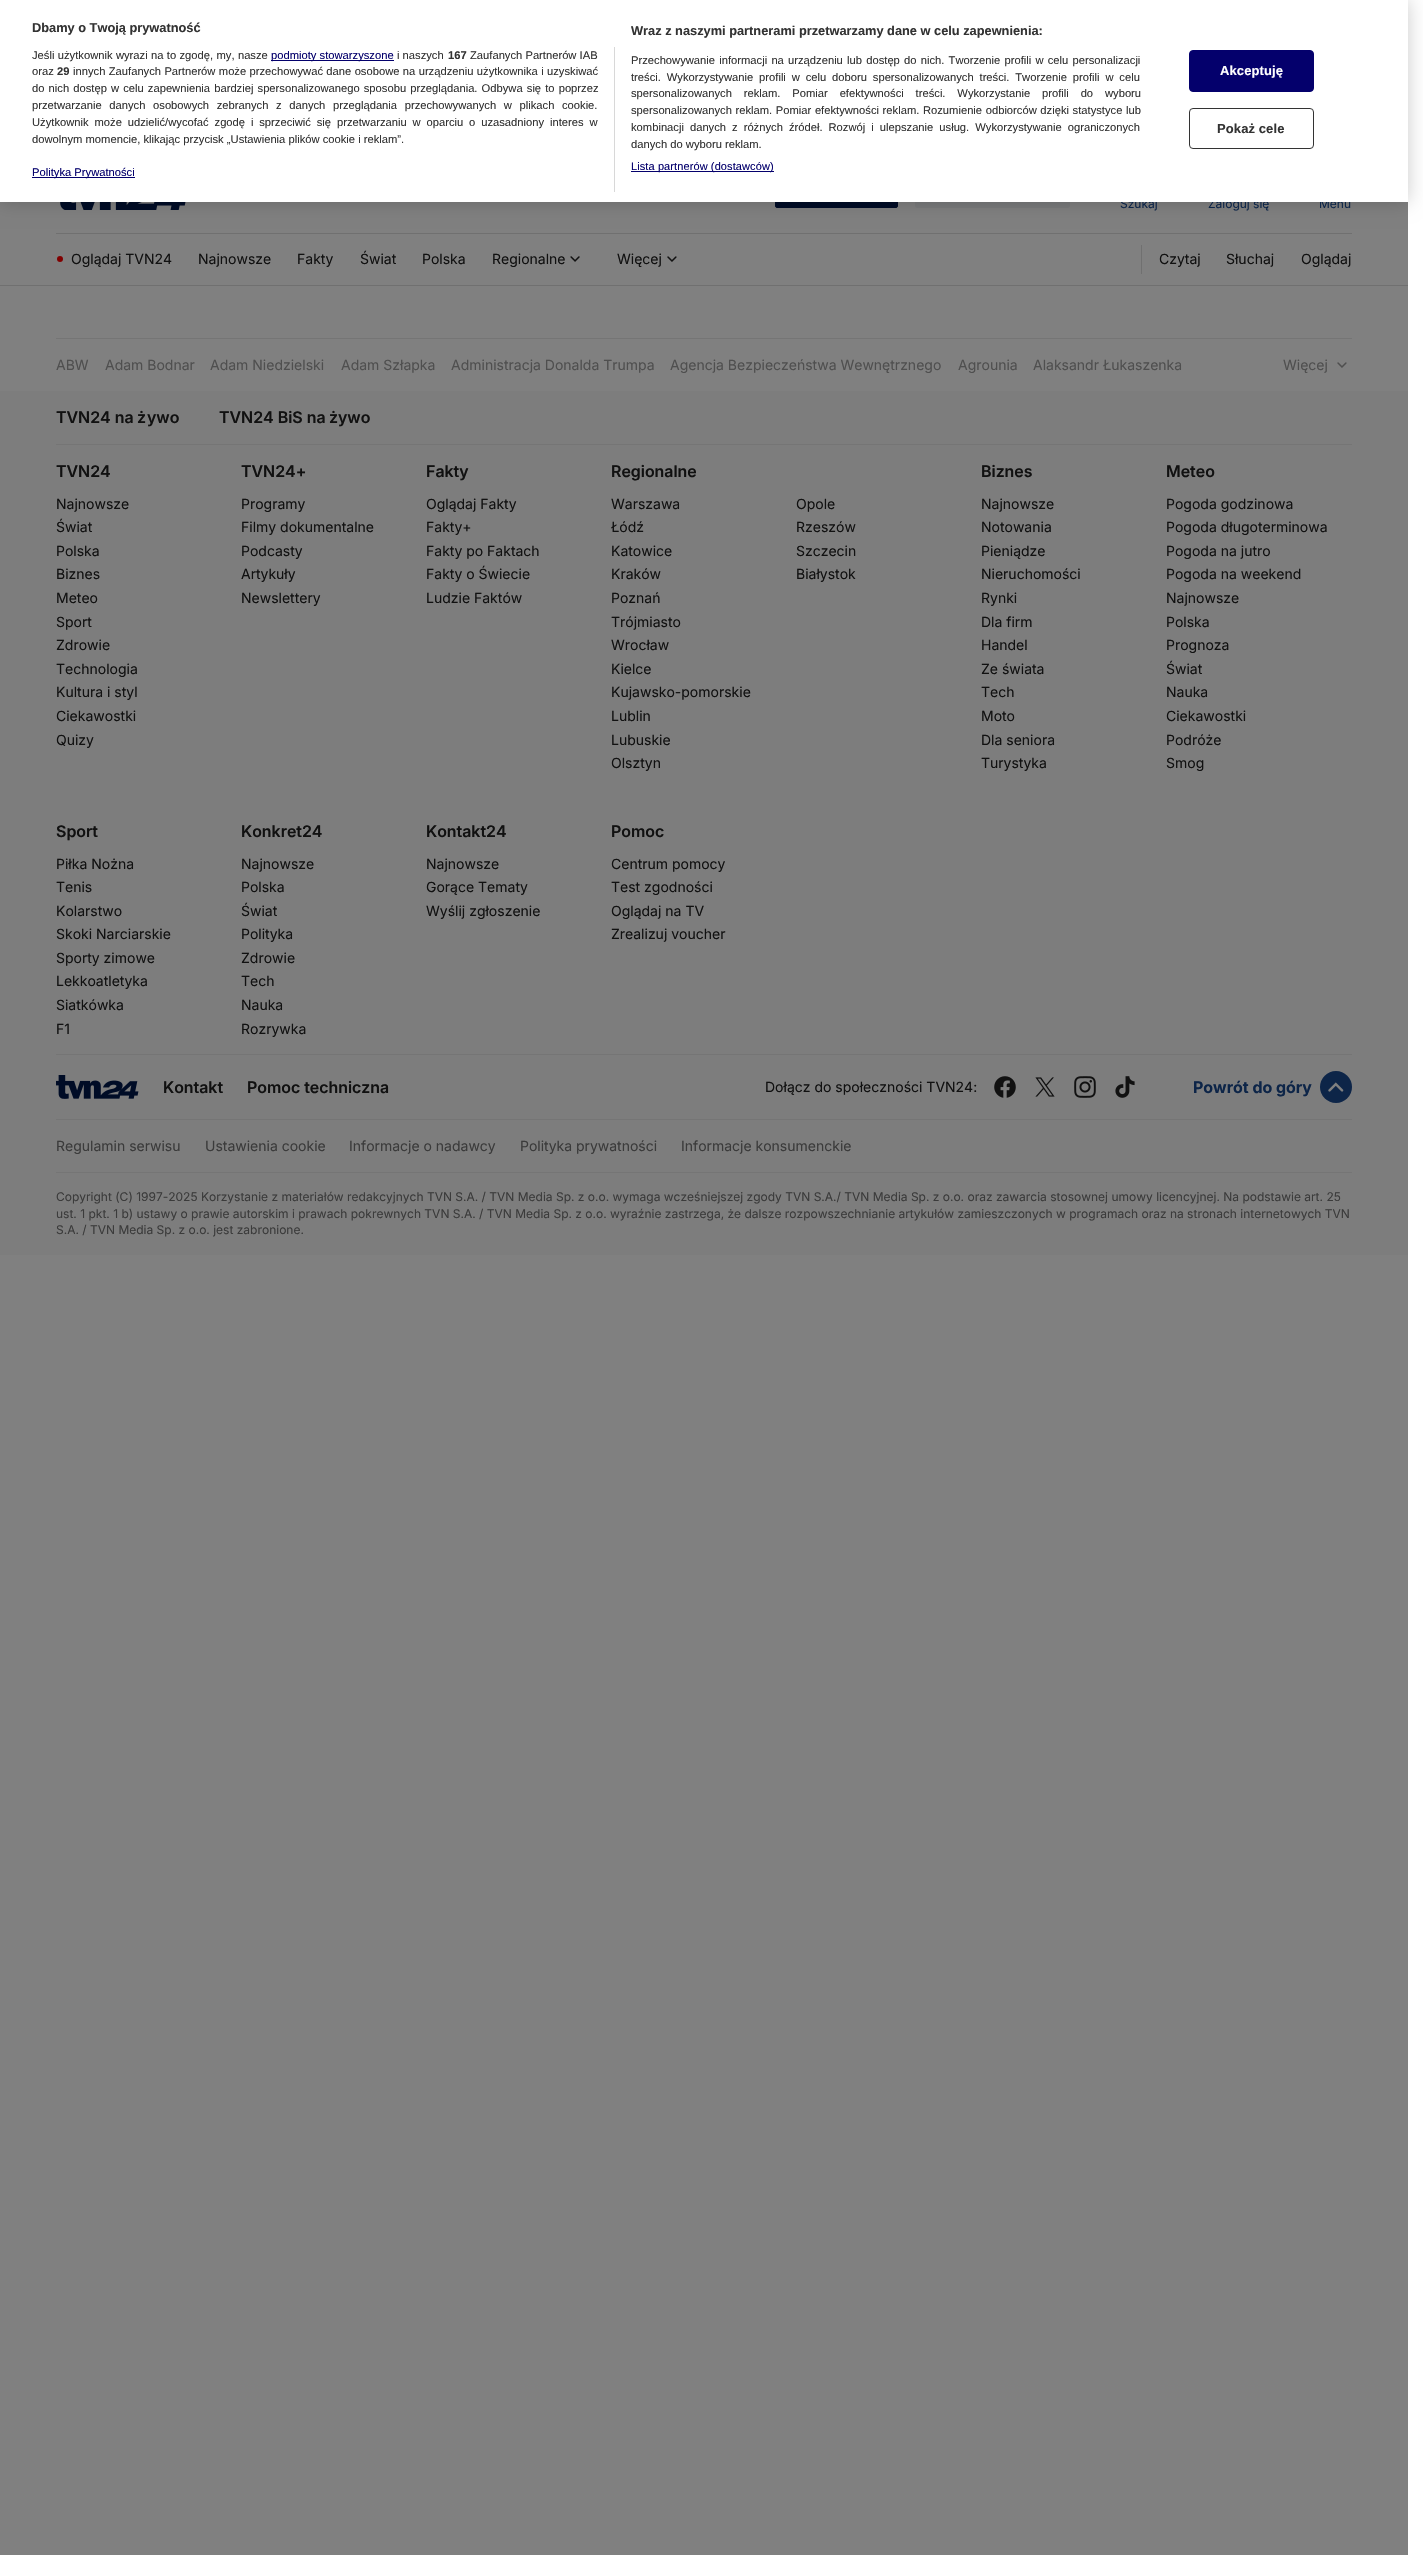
void draw(SkCanvas* canvas) {
    SkPaint paint;
    paint.setAntiAlias(true);
    auto spacedText = [&](const char* s, float x, float y, const SkFont& font, const SkPaint& ink, float letter, float word) {
        std::vector<SkGlyphID> glyphs(font.countText(s, strlen(s), SkTextEncoding::kUTF8));
        std::vector<float> xs(glyphs.size());
        font.textToGlyphs(s, strlen(s), SkTextEncoding::kUTF8, glyphs);
        font.getXPos(glyphs, xs, x);
        float extra = 0;
        for (size_t i = 0; i < glyphs.size(); i++) {
            xs[i] += extra;
            extra += letter + word * (glyphs[i] == font.unicharToGlyph(' '));
        }
        canvas->drawTextBlob(SkTextBlob::MakeFromPosHGlyphs(glyphs, xs, y, font), 0, 0, ink);
    };
    canvas->clear(0xFFFFFFFF);
    paint.setColor(0xFF808080);
    canvas->drawRect(SkRect::MakeXYWH(0, 202, 1408, 2353), paint);
    canvas->drawImageRect(SkImages::DeferredFromEncodedData(SkData::MakeFromFileName("img1.png")), SkRect::MakeXYWH(60, 202, 126, 8), SkSamplingOptions());
    paint.setColor(0xFF000C26);
    canvas->drawRoundRect(SkRect::MakeXYWH(775.5f, 176.5f, 122, 31), 1.5f, 1.5f, paint);
    paint.setStyle(SkPaint::kStroke_Style);
    paint.setStrokeWidth(1);
    canvas->drawRoundRect(SkRect::MakeXYWH(775.5f, 176.5f, 122, 31), 1.5f, 1.5f, paint);
    paint.setStyle(SkPaint::kFill_Style);
    paint.setColor(0xFF797A7B);
    canvas->drawRoundRect(SkRect::MakeXYWH(915, 176, 155, 32), 2, 2, paint);
    paint.setColor(0x33000000);
    paint.setMaskFilter(SkMaskFilter::MakeBlur(kNormal_SkBlurStyle, 9));
    canvas->drawRect(SkRect::MakeXYWH(0, 0, 1408, 202), paint);
    paint.setMaskFilter(nullptr);
    SkFont font1(fontMgr->matchFamilyStyle("Inter", SkFontStyle::Normal()), 12);
    font1.setSubpixel(true);
    paint.setColor(0xFF0D2548);
    canvas->drawString("Szukaj", 1120, 208, font1, paint);
    canvas->drawString("Zaloguj się", 1208, 208, font1, paint);
    canvas->drawString("Menu", 1319, 208, font1, paint);
    paint.setColor(0xFFFFFFFF);
    canvas->drawRect(SkRect::MakeXYWH(0, 0, 1408, 202), paint);
    SkFont font2(fontMgr->matchFamilyStyle("Liberation Sans", SkFontStyle::Bold()), 12.8f);
    font2.setSubpixel(true);
    paint.setColor(0xFF333333);
    canvas->drawString("Dbamy o Twoją prywatność", 32, 32, font2, paint);
    canvas->drawString("Wraz z naszymi partnerami przetwarzamy dane w celu zapewnienia:", 631, 35, font2, paint);
    SkFont font3(fontMgr->matchFamilyStyle("Liberation Sans", SkFontStyle::Normal()), 11.2f);
    font3.setSubpixel(true);
    spacedText("Przechowywanie informacji na urządzeniu lub dostęp do nich. Tworzenie profili w celu personalizacji", 631, 64, font3, paint, 0, 1.1f);
    spacedText("treści. Wykorzystywanie profili w celu doboru spersonalizowanych treści. Tworzenie profili w celu", 631, 81, font3, paint, 0, 2.75f);
    spacedText("spersonalizowanych reklam. Pomiar efektywności treści. Wykorzystanie profili do wyboru", 631, 97, font3, paint, 0, 8.75f);
    spacedText("spersonalizowanych reklam. Pomiar efektywności reklam. Rozumienie odbiorców dzięki statystyce lub", 631, 114, font3, paint, 0, 0.5f);
    spacedText("kombinacji danych z różnych źródeł. Rozwój i ulepszanie usług. Wykorzystywanie ograniczonych", 631, 131, font3, paint, 0, 2.9f);
    canvas->drawString("danych do wyboru reklam.", 631, 148, font3, paint);
    paint.setColor(0xFF04006C);
    canvas->drawRect(SkRect::MakeXYWH(631, 171, 143, 1), paint);
    SkFont font4(fontMgr->matchFamilyStyle("Liberation Sans", SkFontStyle::Normal()), 11);
    font4.setSubpixel(true);
    spacedText("Lista partnerów (dostawców)", 631, 170, font4, paint, 0.1f, 0);
    paint.setColor(0xFFD8D8D8);
    canvas->drawRect(SkRect::MakeXYWH(614, 47, 1, 145), paint);
    paint.setColor(0xFF333333);
    spacedText("Jeśli użytkownik wyrazi na to zgodę, my, nasze", 32, 59, font3, paint, 0, 0.25f);
    paint.setColor(0xFF04006C);
    canvas->drawRect(SkRect::MakeXYWH(271, 60, 123, 1), paint);
    canvas->drawString("podmioty stowarzyszone", 271, 59, font3, paint);
    paint.setColor(0xFF333333);
    canvas->drawString("i naszych", 397, 59, font3, paint);
    SkFont font5(fontMgr->matchFamilyStyle("Liberation Sans", SkFontStyle::Bold()), 11.2f);
    font5.setSubpixel(true);
    canvas->drawString("167", 448, 59, font5, paint);
    canvas->drawString("Zaufanych Partnerów IAB", 470, 59, font3, paint);
    canvas->drawString("oraz", 32, 75, font3, paint);
    canvas->drawString("29", 57, 75, font5, paint);
    spacedText("innych Zaufanych Partnerów może przechowywać dane osobowe na urządzeniu użytkownika i uzyskiwać", 73, 75, font3, paint, 0, 0.25f);
    spacedText("do nich dostęp w celu zapewnienia bardziej spersonalizowanego sposobu przeglądania. Odbywa się to poprzez", 32, 92, font3, paint, 0, 1);
    spacedText("przetwarzanie danych osobowych zebranych z danych przeglądania przechowywanych w plikach cookie.", 32, 109, font3, paint, 0, 4.5f);
    spacedText("Użytkownik może udzielić/wycofać zgodę i sprzeciwić się przetwarzaniu w oparciu o uzasadniony interes w", 32, 126, font3, paint, 0, 2.75f);
    canvas->drawString("dowolnym momencie, klikając przycisk „Ustawienia plików cookie i reklam”.", 32, 143, font3, paint);
    paint.setColor(0xFF04006C);
    canvas->drawRect(SkRect::MakeXYWH(32, 177, 103, 1), paint);
    canvas->drawString("Polityka Prywatności", 32, 176, font3, paint);
    canvas->drawRoundRect(SkRect::MakeXYWH(1189.5f, 50.5f, 124, 41), 3.5f, 3.5f, paint);
    paint.setStyle(SkPaint::kStroke_Style);
    canvas->drawRoundRect(SkRect::MakeXYWH(1189.5f, 50.5f, 124, 41), 3.5f, 3.5f, paint);
    SkFont font6(fontMgr->matchFamilyStyle("Liberation Sans", SkFontStyle::Bold()), 13);
    font6.setSubpixel(true);
    paint.setStyle(SkPaint::kFill_Style);
    paint.setColor(0xFFFFFFFF);
    spacedText("Akceptuję", 1220, 75, font6, paint, 0.1f, 0);
    paint.setStyle(SkPaint::kStroke_Style);
    paint.setColor(0xFF333333);
    canvas->drawRoundRect(SkRect::MakeXYWH(1189.5f, 108.5f, 124, 40), 3.5f, 3.5f, paint);
    paint.setStyle(SkPaint::kFill_Style);
    spacedText("Pokaż cele", 1217, 133, font6, paint, 0.1f, 0);
    paint.setColor(0xFF707070);
    canvas->drawRect(SkRect::MakeXYWH(56, 233, 1296, 1), paint);
    canvas->drawRect(SkRect::MakeXYWH(0, 285, 1408, 1), paint);
    paint.setColor(0xFF800000);
    canvas->drawCircle(60, 259, 3, paint);
    SkFont font7(fontMgr->matchFamilyStyle("Inter", SkFontStyle::Normal()), 14);
    font7.setSubpixel(true);
    paint.setColor(0xFF111111);
    canvas->drawString("Oglądaj TVN24", 71, 264, font7, paint);
    canvas->drawString("Najnowsze", 198, 264, font7, paint);
    canvas->drawString("Fakty", 297, 264, font7, paint);
    canvas->drawString("Świat", 360, 264, font7, paint);
    canvas->drawString("Polska", 422, 264, font7, paint);
    canvas->drawString("Regionalne", 492, 264, font7, paint);
    canvas->drawImageRect(SkImages::DeferredFromEncodedData(SkData::MakeFromFileName("img2.png")), SkRect::MakeXYWH(570, 256, 10, 6), SkSamplingOptions());
    canvas->drawString("Więcej", 617, 264, font7, paint);
    canvas->drawImageRect(SkImages::DeferredFromEncodedData(SkData::MakeFromFileName("img3.png")), SkRect::MakeXYWH(667, 256, 10, 6), SkSamplingOptions());
    paint.setColor(0xFF707070);
    canvas->drawRect(SkRect::MakeXYWH(1141, 245, 1, 29), paint);
    paint.setColor(0xFF111111);
    canvas->drawString("Czytaj", 1159, 264, font7, paint);
    canvas->drawString("Słuchaj", 1226, 264, font7, paint);
    canvas->drawString("Oglądaj", 1301, 264, font7, paint);
    paint.setColor(0xFF757575);
    canvas->drawRect(SkRect::MakeXYWH(56, 338, 1296, 1), paint);
    paint.setColor(0xFF4F4F4F);
    canvas->drawString("ABW", 56, 370, font7, paint);
    canvas->drawString("Adam Bodnar", 105, 370, font7, paint);
    canvas->drawString("Adam Niedzielski", 210, 370, font7, paint);
    canvas->drawString("Adam Szłapka", 341, 370, font7, paint);
    canvas->drawString("Administracja Donalda Trumpa", 451, 370, font7, paint);
    canvas->drawString("Agencja Bezpieczeństwa Wewnętrznego", 670, 370, font7, paint);
    canvas->drawString("Agrounia", 958, 370, font7, paint);
    canvas->drawString("Alaksandr Łukaszenka", 1033, 370, font7, paint);
    canvas->drawString("Więcej", 1283, 370, font7, paint);
    canvas->drawImageRect(SkImages::DeferredFromEncodedData(SkData::MakeFromFileName("img4.png")), SkRect::MakeXYWH(1337, 362, 10, 6), SkSamplingOptions());
    paint.setColor(0xFF7D7D7D);
    canvas->drawRect(SkRect::MakeXYWH(0, 391, 1408, 864), paint);
    SkFont font8(fontMgr->matchFamilyStyle("Inter", SkFontStyle(600, SkFontStyle::kNormal_Width, SkFontStyle::kUpright_Slant)), 16);
    font8.setSubpixel(true);
    paint.setColor(0xFF111111);
    canvas->drawString("TVN24 na", 56, 423, font8, paint);
    SkFont font9(fontMgr->matchFamilyStyle("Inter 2", SkFontStyle(600, SkFontStyle::kNormal_Width, SkFontStyle::kUpright_Slant)), 16);
    font9.setSubpixel(true);
    canvas->drawString("ż", 137, 423, font9, paint);
    canvas->drawString("ywo", 147, 423, font8, paint);
    canvas->drawString("TVN24 BiS na", 219, 423, font8, paint);
    canvas->drawString("ż", 329, 423, font9, paint);
    canvas->drawString("ywo", 338, 423, font8, paint);
    paint.setColor(0xFF757575);
    canvas->drawRect(SkRect::MakeXYWH(56, 444, 1296, 1), paint);
    paint.setColor(0xFF111111);
    canvas->drawString("TVN24", 56, 477, font8, paint);
    canvas->drawString("Najnowsze", 56, 509, font7, paint);
    canvas->drawString("Świat", 56, 532, font7, paint);
    canvas->drawString("Polska", 56, 556, font7, paint);
    canvas->drawString("Biznes", 56, 579, font7, paint);
    canvas->drawString("Meteo", 56, 603, font7, paint);
    canvas->drawString("Sport", 56, 627, font7, paint);
    canvas->drawString("Zdrowie", 56, 650, font7, paint);
    canvas->drawString("Technologia", 56, 674, font7, paint);
    canvas->drawString("Kultura i styl", 56, 697, font7, paint);
    canvas->drawString("Ciekawostki", 56, 721, font7, paint);
    canvas->drawString("Quizy", 56, 745, font7, paint);
    canvas->drawString("TVN24+", 241, 477, font8, paint);
    canvas->drawString("Programy", 241, 509, font7, paint);
    canvas->drawString("Filmy dokumentalne", 241, 532, font7, paint);
    canvas->drawString("Podcasty", 241, 556, font7, paint);
    canvas->drawString("Artykuły", 241, 579, font7, paint);
    canvas->drawString("Newslettery", 241, 603, font7, paint);
    canvas->drawString("Fakty", 426, 477, font8, paint);
    canvas->drawString("Oglądaj Fakty", 426, 509, font7, paint);
    canvas->drawString("Fakty+", 426, 532, font7, paint);
    canvas->drawString("Fakty po Faktach", 426, 556, font7, paint);
    canvas->drawString("Fakty o Świecie", 426, 579, font7, paint);
    canvas->drawString("Ludzie Faktów", 426, 603, font7, paint);
    canvas->drawString("Regionalne", 611, 477, font8, paint);
    canvas->drawString("Warszawa", 611, 509, font7, paint);
    canvas->drawString("Łódź", 611, 532, font7, paint);
    canvas->drawString("Katowice", 611, 556, font7, paint);
    canvas->drawString("Kraków", 611, 579, font7, paint);
    canvas->drawString("Poznań", 611, 603, font7, paint);
    canvas->drawString("Trójmiasto", 611, 627, font7, paint);
    canvas->drawString("Wrocław", 611, 650, font7, paint);
    canvas->drawString("Kielce", 611, 674, font7, paint);
    canvas->drawString("Kujawsko-pomorskie", 611, 697, font7, paint);
    canvas->drawString("Lublin", 611, 721, font7, paint);
    canvas->drawString("Lubuskie", 611, 745, font7, paint);
    canvas->drawString("Olsztyn", 611, 768, font7, paint);
    canvas->drawString("Opole", 796, 509, font7, paint);
    canvas->drawString("Rzeszów", 796, 532, font7, paint);
    canvas->drawString("Szczecin", 796, 556, font7, paint);
    canvas->drawString("Białystok", 796, 579, font7, paint);
    canvas->drawString("Biznes", 981, 477, font8, paint);
    canvas->drawString("Najnowsze", 981, 509, font7, paint);
    canvas->drawString("Notowania", 981, 532, font7, paint);
    canvas->drawString("Pieniądze", 981, 556, font7, paint);
    canvas->drawString("Nieruchomości", 981, 579, font7, paint);
    canvas->drawString("Rynki", 981, 603, font7, paint);
    canvas->drawString("Dla firm", 981, 627, font7, paint);
    canvas->drawString("Handel", 981, 650, font7, paint);
    canvas->drawString("Ze świata", 981, 674, font7, paint);
    canvas->drawString("Tech", 981, 697, font7, paint);
    canvas->drawString("Moto", 981, 721, font7, paint);
    canvas->drawString("Dla seniora", 981, 745, font7, paint);
    canvas->drawString("Turystyka", 981, 768, font7, paint);
    canvas->drawString("Meteo", 1166, 477, font8, paint);
    canvas->drawString("Pogoda godzinowa", 1166, 509, font7, paint);
    canvas->drawString("Pogoda długoterminowa", 1166, 532, font7, paint);
    canvas->drawString("Pogoda na jutro", 1166, 556, font7, paint);
    canvas->drawString("Pogoda na weekend", 1166, 579, font7, paint);
    canvas->drawString("Najnowsze", 1166, 603, font7, paint);
    canvas->drawString("Polska", 1166, 627, font7, paint);
    canvas->drawString("Prognoza", 1166, 650, font7, paint);
    canvas->drawString("Świat", 1166, 674, font7, paint);
    canvas->drawString("Nauka", 1166, 697, font7, paint);
    canvas->drawString("Ciekawostki", 1166, 721, font7, paint);
    canvas->drawString("Podróże", 1166, 745, font7, paint);
    canvas->drawString("Smog", 1166, 768, font7, paint);
    canvas->drawString("Sport", 56, 837, font8, paint);
    canvas->drawString("Piłka Nożna", 56, 869, font7, paint);
    canvas->drawString("Tenis", 56, 892, font7, paint);
    canvas->drawString("Kolarstwo", 56, 916, font7, paint);
    canvas->drawString("Skoki Narciarskie", 56, 939, font7, paint);
    canvas->drawString("Sporty zimowe", 56, 963, font7, paint);
    canvas->drawString("Lekkoatletyka", 56, 986, font7, paint);
    canvas->drawString("Siatkówka", 56, 1010, font7, paint);
    canvas->drawString("F1", 56, 1034, font7, paint);
    canvas->drawString("Konkret24", 241, 837, font8, paint);
    canvas->drawString("Najnowsze", 241, 869, font7, paint);
    canvas->drawString("Polska", 241, 892, font7, paint);
    canvas->drawString("Świat", 241, 916, font7, paint);
    canvas->drawString("Polityka", 241, 939, font7, paint);
    canvas->drawString("Zdrowie", 241, 963, font7, paint);
    canvas->drawString("Tech", 241, 986, font7, paint);
    canvas->drawString("Nauka", 241, 1010, font7, paint);
    canvas->drawString("Rozrywka", 241, 1034, font7, paint);
    canvas->drawString("Kontakt24", 426, 837, font8, paint);
    canvas->drawString("Najnowsze", 426, 869, font7, paint);
    canvas->drawString("Gorące Tematy", 426, 892, font7, paint);
    canvas->drawString("Wyślij zgłoszenie", 426, 916, font7, paint);
    canvas->drawString("Pomoc", 611, 837, font8, paint);
    canvas->drawString("Centrum pomocy", 611, 869, font7, paint);
    canvas->drawString("Test zgodności", 611, 892, font7, paint);
    canvas->drawString("Oglądaj na TV", 611, 916, font7, paint);
    canvas->drawString("Zrealizuj voucher", 611, 939, font7, paint);
    paint.setColor(0xFF757575);
    canvas->drawRect(SkRect::MakeXYWH(56, 1054, 1296, 1), paint);
    canvas->drawImageRect(SkImages::DeferredFromEncodedData(SkData::MakeFromFileName("img5.png")), SkRect::MakeXYWH(56, 1075, 83, 24), SkSamplingOptions());
    paint.setColor(0xFF111111);
    canvas->drawString("Kontakt", 163, 1093, font8, paint);
    canvas->drawString("Pomoc techniczna", 247, 1093, font8, paint);
    canvas->drawString("Dołącz do społeczności TVN24:", 765, 1092, font7, paint);
    canvas->drawImageRect(SkImages::DeferredFromEncodedData(SkData::MakeFromFileName("img6.png")), SkRect::MakeXYWH(994, 1076, 22, 22), SkSamplingOptions());
    canvas->drawImageRect(SkImages::DeferredFromEncodedData(SkData::MakeFromFileName("img7.png")), SkRect::MakeXYWH(1035, 1077, 20, 20), SkSamplingOptions());
    canvas->drawImageRect(SkImages::DeferredFromEncodedData(SkData::MakeFromFileName("img8.png")), SkRect::MakeXYWH(1074, 1076, 22, 22), SkSamplingOptions());
    canvas->drawImageRect(SkImages::DeferredFromEncodedData(SkData::MakeFromFileName("img9.png")), SkRect::MakeXYWH(1115, 1076, 20, 22), SkSamplingOptions());
    SkFont font10(fontMgr->matchFamilyStyle("Inter", SkFontStyle::Bold()), 16);
    font10.setSubpixel(true);
    paint.setColor(0xFF0D2548);
    canvas->drawString("Powrót do góry", 1193, 1093, font10, paint);
    canvas->drawCircle(1336, 1087, 16, paint);
    canvas->drawImageRect(SkImages::DeferredFromEncodedData(SkData::MakeFromFileName("img10.png")), SkRect::MakeXYWH(1328, 1082, 16, 10), SkSamplingOptions());
    paint.setColor(0xFF757575);
    canvas->drawRect(SkRect::MakeXYWH(56, 1119, 1296, 1), paint);
    paint.setColor(0xFF3B3B3B);
    canvas->drawString("Regulamin serwisu", 56, 1151, font7, paint);
    canvas->drawString("Ustawienia cookie", 205, 1151, font7, paint);
    canvas->drawString("Informacje o nadawcy", 349, 1151, font7, paint);
    canvas->drawString("Polityka prywatności", 520, 1151, font7, paint);
    canvas->drawString("Informacje konsumenckie", 681, 1151, font7, paint);
    paint.setColor(0xFF757575);
    canvas->drawRect(SkRect::MakeXYWH(56, 1172, 1296, 1), paint);
    paint.setColor(0xFF3B3B3B);
    canvas->drawString("Copyright (C) 1997-2025 Korzystanie z materiałów redakcyjnych TVN S.A. / TVN Media Sp. z o.o. wymaga wcześniejszej zgody TVN S.A./ TVN Media Sp. z o.o. oraz zawarcia stosownej umowy licencyjnej. Na podstawie art. 25", 56, 1201, font1, paint);
    canvas->drawString("ust. 1 pkt. 1 b) ustawy o prawie autorskim i prawach pokrewnych TVN S.A. / TVN Media Sp. z o.o. wyraźnie zastrzega, że dalsze rozpowszechnianie artykułów zamieszczonych w programach oraz na stronach internetowych TVN", 56, 1218, font1, paint);
    canvas->drawString("S.A. / TVN Media Sp. z o.o. jest zabronione.", 56, 1234, font1, paint);
}
